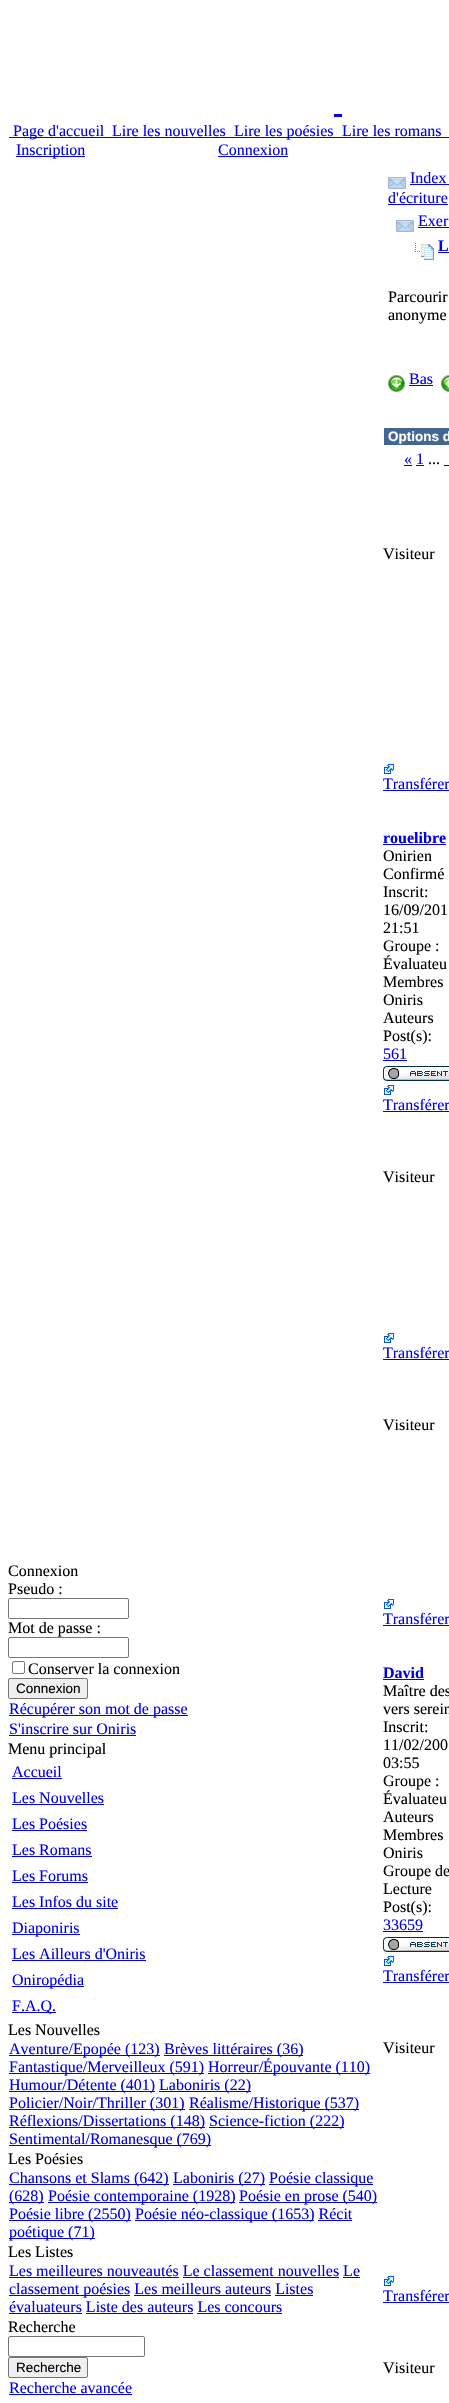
void draw(SkCanvas* canvas) {
    SkPaint paint;
    paint.setAntiAlias(true);
    canvas->clear(0xFFFFFFFF);
    paint.setColor(0xFF0000EE);
    canvas->drawRect(SkRect::MakeXYWH(334, 114, 8, 3), paint);
    canvas->drawRect(SkRect::MakeXYWH(9, 137, 440, 1), paint);
    SkFont font1(fontMgr->matchFamilyStyle("Liberation Serif", SkFontStyle::Normal()), 16);
    font1.setSubpixel(true);
    canvas->drawString("Page d'accueil", 13, 136, font1, paint);
    canvas->drawString("Lire les nouvelles", 112, 136, font1, paint);
    canvas->drawString("Lire les poésies", 234, 136, font1, paint);
    canvas->drawString("Lire les romans", 342, 136, font1, paint);
    canvas->drawRect(SkRect::MakeXYWH(16, 156, 69, 1), paint);
    canvas->drawString("Inscription", 16, 155, font1, paint);
    canvas->drawString("Connexion", 218, 155, font1, paint);
    canvas->drawRect(SkRect::MakeXYWH(218, 156, 70, 1), paint);
    paint.setColor(0xFF000000);
    canvas->drawString("Connexion", 8, 1576, font1, paint);
    canvas->drawString("Pseudo :", 8, 1594, font1, paint);
    paint.setStyle(SkPaint::kStroke_Style);
    paint.setStrokeWidth(1);
    paint.setColor(0xFF767676);
    canvas->drawRoundRect(SkRect::MakeXYWH(8.5f, 1598.5f, 120, 20), 1.5f, 1.5f, paint);
    paint.setStyle(SkPaint::kFill_Style);
    paint.setColor(0xFF000000);
    canvas->drawString("Mot de passe :", 8, 1633, font1, paint);
    paint.setStyle(SkPaint::kStroke_Style);
    paint.setColor(0xFF767676);
    canvas->drawRoundRect(SkRect::MakeXYWH(8.5f, 1637.5f, 120, 20), 1.5f, 1.5f, paint);
    canvas->drawRoundRect(SkRect::MakeXYWH(12.5f, 1661.5f, 12, 12), 1.5f, 1.5f, paint);
    paint.setStyle(SkPaint::kFill_Style);
    paint.setColor(0xFF000000);
    canvas->drawString("Conserver la connexion", 28, 1674, font1, paint);
    paint.setColor(0xFFEFEFEF);
    canvas->drawRoundRect(SkRect::MakeXYWH(8.5f, 1678.5f, 79, 20), 1.5f, 1.5f, paint);
    paint.setStyle(SkPaint::kStroke_Style);
    paint.setColor(0xFF767676);
    canvas->drawRoundRect(SkRect::MakeXYWH(8.5f, 1678.5f, 79, 20), 1.5f, 1.5f, paint);
    SkFont font2(fontMgr->matchFamilyStyle("Liberation Sans", SkFontStyle::Normal()), 13.5f);
    font2.setSubpixel(true);
    paint.setStyle(SkPaint::kFill_Style);
    paint.setColor(0xFF000000);
    canvas->drawString("Connexion", 16, 1693, font2, paint);
    paint.setColor(0xFF0000EE);
    canvas->drawRect(SkRect::MakeXYWH(9, 1715, 179, 1), paint);
    canvas->drawString("Récupérer son mot de passe", 9, 1714, font1, paint);
    canvas->drawString("S'inscrire sur Oniris", 9, 1734, font1, paint);
    canvas->drawRect(SkRect::MakeXYWH(9, 1735, 127, 1), paint);
    paint.setColor(0xFF000000);
    canvas->drawString("Menu principal", 8, 1754, font1, paint);
    paint.setColor(0xFF0000EE);
    canvas->drawString("Accueil", 12, 1777, font1, paint);
    canvas->drawRect(SkRect::MakeXYWH(12, 1778, 50, 1), paint);
    canvas->drawString("Les Nouvelles", 12, 1803, font1, paint);
    canvas->drawRect(SkRect::MakeXYWH(12, 1804, 92, 1), paint);
    canvas->drawString("Les Poésies", 12, 1829, font1, paint);
    canvas->drawRect(SkRect::MakeXYWH(12, 1830, 75, 1), paint);
    canvas->drawString("Les Romans", 12, 1855, font1, paint);
    canvas->drawRect(SkRect::MakeXYWH(12, 1856, 80, 1), paint);
    canvas->drawString("Les Forums", 12, 1881, font1, paint);
    canvas->drawRect(SkRect::MakeXYWH(12, 1882, 76, 1), paint);
    canvas->drawString("Les Infos du site", 12, 1907, font1, paint);
    canvas->drawRect(SkRect::MakeXYWH(12, 1908, 106, 1), paint);
    canvas->drawRect(SkRect::MakeXYWH(12, 1934, 68, 1), paint);
    canvas->drawString("Diaponiris", 12, 1933, font1, paint);
    canvas->drawString("Les Ailleurs d'Oniris", 12, 1959, font1, paint);
    canvas->drawRect(SkRect::MakeXYWH(12, 1960, 134, 1), paint);
    canvas->drawRect(SkRect::MakeXYWH(12, 1986, 72, 1), paint);
    canvas->drawString("Oniropédia", 12, 1985, font1, paint);
    canvas->drawRect(SkRect::MakeXYWH(12, 2012, 44, 1), paint);
    canvas->drawString("F.A.Q.", 12, 2011, font1, paint);
    paint.setColor(0xFF000000);
    canvas->drawString("Les Nouvelles", 8, 2035, font1, paint);
    paint.setColor(0xFF0000EE);
    canvas->drawRect(SkRect::MakeXYWH(9, 2055, 151, 1), paint);
    canvas->drawString("Aventure/Epopée (123)", 9, 2054, font1, paint);
    canvas->drawRect(SkRect::MakeXYWH(164, 2055, 139, 1), paint);
    canvas->drawString("Brèves littéraires (36)", 164, 2054, font1, paint);
    canvas->drawRect(SkRect::MakeXYWH(9, 2073, 195, 1), paint);
    canvas->drawString("Fantastique/Merveilleux (591)", 9, 2072, font1, paint);
    canvas->drawRect(SkRect::MakeXYWH(208, 2073, 162, 1), paint);
    canvas->drawString("Horreur/Épouvante (110)", 208, 2072, font1, paint);
    canvas->drawRect(SkRect::MakeXYWH(9, 2091, 146, 1), paint);
    canvas->drawString("Humour/Détente (401)", 9, 2090, font1, paint);
    canvas->drawRect(SkRect::MakeXYWH(159, 2091, 92, 1), paint);
    canvas->drawString("Laboniris (22)", 159, 2090, font1, paint);
    canvas->drawRect(SkRect::MakeXYWH(9, 2109, 176, 1), paint);
    canvas->drawString("Policier/Noir/Thriller (301)", 9, 2108, font1, paint);
    canvas->drawRect(SkRect::MakeXYWH(189, 2109, 170, 1), paint);
    canvas->drawString("Réalisme/Historique (537)", 189, 2108, font1, paint);
    canvas->drawRect(SkRect::MakeXYWH(9, 2127, 196, 1), paint);
    canvas->drawString("Réflexions/Dissertations (148)", 9, 2126, font1, paint);
    canvas->drawRect(SkRect::MakeXYWH(209, 2127, 135, 1), paint);
    canvas->drawString("Science-fiction (222)", 209, 2126, font1, paint);
    canvas->drawRect(SkRect::MakeXYWH(9, 2145, 202, 1), paint);
    canvas->drawString("Sentimental/Romanesque (769)", 9, 2144, font1, paint);
    paint.setColor(0xFF000000);
    canvas->drawString("Les Poésies", 8, 2164, font1, paint);
    paint.setColor(0xFF0000EE);
    canvas->drawRect(SkRect::MakeXYWH(9, 2184, 160, 1), paint);
    canvas->drawString("Chansons et Slams (642)", 9, 2183, font1, paint);
    canvas->drawRect(SkRect::MakeXYWH(173, 2184, 92, 1), paint);
    canvas->drawString("Laboniris (27)", 173, 2183, font1, paint);
    canvas->drawRect(SkRect::MakeXYWH(269, 2184, 104, 1), paint);
    canvas->drawString("Poésie classique", 269, 2183, font1, paint);
    canvas->drawRect(SkRect::MakeXYWH(9, 2202, 35, 1), paint);
    canvas->drawString("(628)", 9, 2201, font1, paint);
    canvas->drawRect(SkRect::MakeXYWH(48, 2202, 187, 1), paint);
    canvas->drawString("Poésie contemporaine (1928)", 48, 2201, font1, paint);
    canvas->drawRect(SkRect::MakeXYWH(239, 2202, 138, 1), paint);
    canvas->drawString("Poésie en prose (540)", 239, 2201, font1, paint);
    canvas->drawRect(SkRect::MakeXYWH(9, 2220, 122, 1), paint);
    canvas->drawString("Poésie libre (2550)", 9, 2219, font1, paint);
    canvas->drawRect(SkRect::MakeXYWH(135, 2220, 179, 1), paint);
    canvas->drawString("Poésie néo-classique (1653) Récit", 135, 2219, font1, paint);
    canvas->drawRect(SkRect::MakeXYWH(9, 2238, 86, 1), paint);
    canvas->drawString("poétique (71)", 9, 2237, font1, paint);
    canvas->drawRect(SkRect::MakeXYWH(318, 2220, 34, 1), paint);
    paint.setColor(0xFF000000);
    canvas->drawString("Les Listes", 8, 2257, font1, paint);
    paint.setColor(0xFF0000EE);
    canvas->drawString("Les meilleures nouveautés Le classement nouvelles Le", 9, 2276, font1, paint);
    canvas->drawRect(SkRect::MakeXYWH(9, 2277, 170, 1), paint);
    canvas->drawRect(SkRect::MakeXYWH(183, 2277, 156, 1), paint);
    canvas->drawRect(SkRect::MakeXYWH(9, 2295, 121, 1), paint);
    canvas->drawString("classement poésies Les meilleurs auteurs Listes", 9, 2294, font1, paint);
    canvas->drawRect(SkRect::MakeXYWH(343, 2277, 17, 1), paint);
    canvas->drawRect(SkRect::MakeXYWH(134, 2295, 137, 1), paint);
    canvas->drawString("évaluateurs Liste des auteurs Les concours", 9, 2312, font1, paint);
    canvas->drawRect(SkRect::MakeXYWH(275, 2295, 38, 1), paint);
    canvas->drawRect(SkRect::MakeXYWH(9, 2313, 73, 1), paint);
    canvas->drawRect(SkRect::MakeXYWH(86, 2313, 107, 1), paint);
    canvas->drawRect(SkRect::MakeXYWH(197, 2313, 85, 1), paint);
    paint.setColor(0xFF000000);
    canvas->drawString("Recherche", 8, 2332, font1, paint);
    paint.setStyle(SkPaint::kStroke_Style);
    paint.setColor(0xFF767676);
    canvas->drawRoundRect(SkRect::MakeXYWH(8.5f, 2336.5f, 136, 20), 1.5f, 1.5f, paint);
    paint.setStyle(SkPaint::kFill_Style);
    paint.setColor(0xFFEFEFEF);
    canvas->drawRoundRect(SkRect::MakeXYWH(8.5f, 2357.5f, 79, 20), 1.5f, 1.5f, paint);
    paint.setStyle(SkPaint::kStroke_Style);
    paint.setColor(0xFF767676);
    canvas->drawRoundRect(SkRect::MakeXYWH(8.5f, 2357.5f, 79, 20), 1.5f, 1.5f, paint);
    paint.setStyle(SkPaint::kFill_Style);
    paint.setColor(0xFF000000);
    canvas->drawString("Recherche", 16, 2372, font2, paint);
    paint.setColor(0xFF0000EE);
    canvas->drawString("Recherche avancée", 9, 2393, font1, paint);
    canvas->drawRect(SkRect::MakeXYWH(9, 2394, 123, 1), paint);
    canvas->drawImageRect(SkImages::DeferredFromEncodedData(SkData::MakeFromFileName("img1.png")), SkRect::MakeXYWH(388, 177, 18, 12), SkSamplingOptions());
    canvas->drawString("Index", 410, 183, font1, paint);
    canvas->drawRect(SkRect::MakeXYWH(410, 184, 39, 1), paint);
    canvas->drawString("d'écriture", 388, 203, font1, paint);
    canvas->drawRect(SkRect::MakeXYWH(388, 204, 60, 1), paint);
    canvas->drawImageRect(SkImages::DeferredFromEncodedData(SkData::MakeFromFileName("img1.png")), SkRect::MakeXYWH(396, 220, 18, 12), SkSamplingOptions());
    canvas->drawString("Exer", 418, 226, font1, paint);
    canvas->drawRect(SkRect::MakeXYWH(418, 227, 31, 1), paint);
    canvas->drawImageRect(SkImages::DeferredFromEncodedData(SkData::MakeFromFileName("img2.png")), SkRect::MakeXYWH(415, 243, 19, 17), SkSamplingOptions());
    SkFont font3(fontMgr->matchFamilyStyle("Liberation Serif", SkFontStyle::Bold()), 16);
    font3.setSubpixel(true);
    canvas->drawString("L", 438, 251, font3, paint);
    canvas->drawRect(SkRect::MakeXYWH(438, 252, 11, 1), paint);
    paint.setColor(0xFF000000);
    canvas->drawString("Parcourir", 388, 302, font1, paint);
    canvas->drawString("anonyme", 388, 320, font1, paint);
    canvas->drawImageRect(SkImages::DeferredFromEncodedData(SkData::MakeFromFileName("img3.png")), SkRect::MakeXYWH(388, 375, 17, 17), SkSamplingOptions());
    paint.setColor(0xFF0000EE);
    canvas->drawString("Bas", 409, 384, font1, paint);
    canvas->drawRect(SkRect::MakeXYWH(409, 385, 24, 1), paint);
    canvas->drawImageRect(SkImages::DeferredFromEncodedData(SkData::MakeFromFileName("img4.png")), SkRect::MakeXYWH(441, 375, 8, 17), SkSamplingOptions());
    paint.setColor(0xFF436792);
    canvas->drawRect(SkRect::MakeXYWH(384, 428, 65, 17), paint);
    SkFont font4(fontMgr->matchFamilyStyle("Liberation Sans", SkFontStyle::Bold()), 13.5f);
    font4.setSubpixel(true);
    paint.setColor(0xFFFFFFFF);
    canvas->drawString("Options d", 388, 441, font4, paint);
    paint.setColor(0xFF0000EE);
    canvas->drawString("« 1", 404, 464, font1, paint);
    canvas->drawRect(SkRect::MakeXYWH(404, 465, 8, 1), paint);
    paint.setColor(0xFF000000);
    canvas->drawString("...", 428, 464, font1, paint);
    paint.setColor(0xFF0000EE);
    canvas->drawRect(SkRect::MakeXYWH(416, 465, 8, 1), paint);
    canvas->drawRect(SkRect::MakeXYWH(444, 465, 5, 1), paint);
    paint.setColor(0xFF000000);
    canvas->drawString("Visiteur", 383, 559, font1, paint);
    canvas->drawImageRect(SkImages::DeferredFromEncodedData(SkData::MakeFromFileName("img5.png")), SkRect::MakeXYWH(384, 764, 10, 10), SkSamplingOptions());
    paint.setColor(0xFF0000EE);
    canvas->drawString("Transférer", 383, 789, font1, paint);
    canvas->drawRect(SkRect::MakeXYWH(383, 790, 66, 1), paint);
    canvas->drawString("rouelibre", 383, 843, font3, paint);
    canvas->drawRect(SkRect::MakeXYWH(383, 844, 63, 1), paint);
    paint.setColor(0xFF000000);
    canvas->drawString("Onirien", 383, 861, font1, paint);
    canvas->drawString("Confirmé", 383, 879, font1, paint);
    canvas->drawString("Inscrit:", 383, 897, font1, paint);
    canvas->drawString("16/09/201", 383, 915, font1, paint);
    canvas->drawString("21:51", 383, 933, font1, paint);
    canvas->drawString("Groupe :", 383, 951, font1, paint);
    canvas->drawString("Évaluateu", 383, 969, font1, paint);
    canvas->drawString("Membres", 383, 987, font1, paint);
    canvas->drawString("Oniris", 383, 1005, font1, paint);
    canvas->drawString("Auteurs", 383, 1023, font1, paint);
    canvas->drawString("Post(s):", 383, 1041, font1, paint);
    paint.setColor(0xFF0000EE);
    canvas->drawString("561", 383, 1059, font1, paint);
    canvas->drawRect(SkRect::MakeXYWH(383, 1060, 24, 1), paint);
    canvas->drawImageRect(SkImages::DeferredFromEncodedData(SkData::MakeFromFileName("img6.png")), SkRect::MakeXYWH(383, 1066, 66, 15), SkSamplingOptions());
    canvas->drawImageRect(SkImages::DeferredFromEncodedData(SkData::MakeFromFileName("img5.png")), SkRect::MakeXYWH(384, 1085, 10, 10), SkSamplingOptions());
    canvas->drawString("Transférer", 383, 1110, font1, paint);
    canvas->drawRect(SkRect::MakeXYWH(383, 1111, 66, 1), paint);
    paint.setColor(0xFF000000);
    canvas->drawString("Visiteur", 383, 1182, font1, paint);
    canvas->drawImageRect(SkImages::DeferredFromEncodedData(SkData::MakeFromFileName("img5.png")), SkRect::MakeXYWH(384, 1333, 10, 10), SkSamplingOptions());
    paint.setColor(0xFF0000EE);
    canvas->drawString("Transférer", 383, 1358, font1, paint);
    canvas->drawRect(SkRect::MakeXYWH(383, 1359, 66, 1), paint);
    paint.setColor(0xFF000000);
    canvas->drawString("Visiteur", 383, 1430, font1, paint);
    canvas->drawImageRect(SkImages::DeferredFromEncodedData(SkData::MakeFromFileName("img5.png")), SkRect::MakeXYWH(384, 1599, 10, 10), SkSamplingOptions());
    paint.setColor(0xFF0000EE);
    canvas->drawString("Transférer", 383, 1624, font1, paint);
    canvas->drawRect(SkRect::MakeXYWH(383, 1625, 66, 1), paint);
    canvas->drawString("David", 383, 1678, font3, paint);
    canvas->drawRect(SkRect::MakeXYWH(383, 1679, 41, 1), paint);
    paint.setColor(0xFF000000);
    canvas->drawString("Maître des", 383, 1696, font1, paint);
    canvas->drawString("vers serein", 383, 1714, font1, paint);
    canvas->drawString("Inscrit:", 383, 1732, font1, paint);
    canvas->drawString("11/02/200", 383, 1750, font1, paint);
    canvas->drawString("03:55", 383, 1768, font1, paint);
    canvas->drawString("Groupe :", 383, 1786, font1, paint);
    canvas->drawString("Évaluateu", 383, 1804, font1, paint);
    canvas->drawString("Auteurs", 383, 1822, font1, paint);
    canvas->drawString("Membres", 383, 1840, font1, paint);
    canvas->drawString("Oniris", 383, 1858, font1, paint);
    canvas->drawString("Groupe de", 383, 1876, font1, paint);
    canvas->drawString("Lecture", 383, 1894, font1, paint);
    canvas->drawString("Post(s):", 383, 1912, font1, paint);
    paint.setColor(0xFF0000EE);
    canvas->drawString("33659", 383, 1930, font1, paint);
    canvas->drawRect(SkRect::MakeXYWH(383, 1931, 40, 1), paint);
    canvas->drawImageRect(SkImages::DeferredFromEncodedData(SkData::MakeFromFileName("img6.png")), SkRect::MakeXYWH(383, 1937, 66, 15), SkSamplingOptions());
    canvas->drawImageRect(SkImages::DeferredFromEncodedData(SkData::MakeFromFileName("img5.png")), SkRect::MakeXYWH(384, 1956, 10, 10), SkSamplingOptions());
    canvas->drawString("Transférer", 383, 1981, font1, paint);
    canvas->drawRect(SkRect::MakeXYWH(383, 1982, 66, 1), paint);
    paint.setColor(0xFF000000);
    canvas->drawString("Visiteur", 383, 2053, font1, paint);
    canvas->drawImageRect(SkImages::DeferredFromEncodedData(SkData::MakeFromFileName("img5.png")), SkRect::MakeXYWH(384, 2276, 10, 10), SkSamplingOptions());
    paint.setColor(0xFF0000EE);
    canvas->drawString("Transférer", 383, 2301, font1, paint);
    canvas->drawRect(SkRect::MakeXYWH(383, 2302, 66, 1), paint);
    paint.setColor(0xFF000000);
    canvas->drawString("Visiteur", 383, 2373, font1, paint);
}
